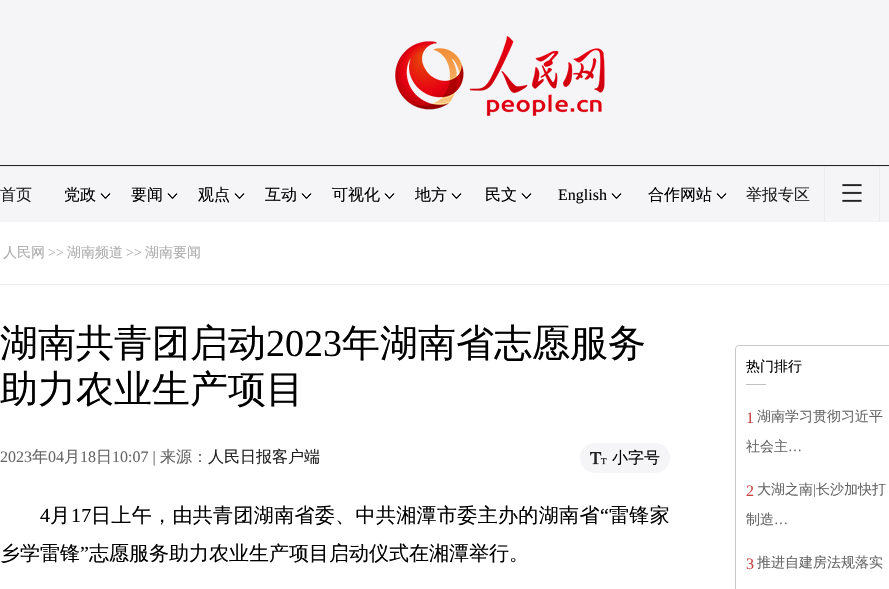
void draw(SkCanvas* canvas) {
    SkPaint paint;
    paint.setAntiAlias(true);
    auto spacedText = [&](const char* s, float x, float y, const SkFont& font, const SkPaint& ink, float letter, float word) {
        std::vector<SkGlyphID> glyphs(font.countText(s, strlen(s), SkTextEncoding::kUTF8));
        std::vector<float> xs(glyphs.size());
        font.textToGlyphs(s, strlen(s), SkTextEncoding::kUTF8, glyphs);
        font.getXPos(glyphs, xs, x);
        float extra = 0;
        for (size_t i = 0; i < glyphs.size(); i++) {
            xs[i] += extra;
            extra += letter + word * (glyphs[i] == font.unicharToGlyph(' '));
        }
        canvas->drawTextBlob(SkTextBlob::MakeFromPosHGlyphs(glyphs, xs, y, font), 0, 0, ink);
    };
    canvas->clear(0xFFFFFFFF);
    paint.setColor(0xFFF5F5F7);
    canvas->drawRect(SkRect::MakeXYWH(0, 0, 889, 165), paint);
    paint.setColor(0xFF212121);
    canvas->drawRect(SkRect::MakeXYWH(0, 165, 889, 1), paint);
    canvas->drawImageRect(SkImages::DeferredFromEncodedData(SkData::MakeFromFileName("img1.png")), SkRect::MakeXYWH(395, 36, 210, 80), SkSamplingOptions());
    paint.setColor(0xFFE9E9E9);
    canvas->drawRect(SkRect::MakeXYWH(0, 166, 889, 1), paint);
    paint.setColor(0xFFF5F5F7);
    canvas->drawRect(SkRect::MakeXYWH(0, 167, 889, 55), paint);
    SkFont font1(fontMgr->matchFamilyStyle("WenQuanYi Zen Hei", SkFontStyle(500, SkFontStyle::kNormal_Width, SkFontStyle::kUpright_Slant)), 16);
    font1.setSubpixel(true);
    paint.setColor(0xFF212121);
    canvas->drawString("首页", 0, 200, font1, paint);
    paint.setColor(0xFF000000);
    canvas->drawString("党政", 64, 200, font1, paint);
    canvas->drawImageRect(SkImages::DeferredFromEncodedData(SkData::MakeFromFileName("img2.png")), SkRect::MakeXYWH(100, 193, 11, 6), SkSamplingOptions());
    canvas->drawString("要闻", 131, 200, font1, paint);
    canvas->drawImageRect(SkImages::DeferredFromEncodedData(SkData::MakeFromFileName("img2.png")), SkRect::MakeXYWH(167, 193, 11, 6), SkSamplingOptions());
    canvas->drawString("观点", 198, 200, font1, paint);
    canvas->drawImageRect(SkImages::DeferredFromEncodedData(SkData::MakeFromFileName("img2.png")), SkRect::MakeXYWH(234, 193, 11, 6), SkSamplingOptions());
    canvas->drawString("互动", 265, 200, font1, paint);
    canvas->drawImageRect(SkImages::DeferredFromEncodedData(SkData::MakeFromFileName("img2.png")), SkRect::MakeXYWH(301, 193, 11, 6), SkSamplingOptions());
    canvas->drawString("可视化", 332, 200, font1, paint);
    canvas->drawImageRect(SkImages::DeferredFromEncodedData(SkData::MakeFromFileName("img2.png")), SkRect::MakeXYWH(384, 193, 11, 6), SkSamplingOptions());
    canvas->drawString("地方", 415, 200, font1, paint);
    canvas->drawImageRect(SkImages::DeferredFromEncodedData(SkData::MakeFromFileName("img2.png")), SkRect::MakeXYWH(451, 193, 11, 6), SkSamplingOptions());
    canvas->drawString("民文", 485, 200, font1, paint);
    canvas->drawImageRect(SkImages::DeferredFromEncodedData(SkData::MakeFromFileName("img2.png")), SkRect::MakeXYWH(521, 193, 11, 6), SkSamplingOptions());
    SkFont font2(fontMgr->matchFamilyStyle("Liberation Serif", SkFontStyle::Normal()), 16);
    font2.setSubpixel(true);
    canvas->drawString("English", 558, 200, font2, paint);
    canvas->drawImageRect(SkImages::DeferredFromEncodedData(SkData::MakeFromFileName("img2.png")), SkRect::MakeXYWH(611, 193, 11, 6), SkSamplingOptions());
    canvas->drawString("合作网站", 648, 200, font1, paint);
    canvas->drawImageRect(SkImages::DeferredFromEncodedData(SkData::MakeFromFileName("img2.png")), SkRect::MakeXYWH(716, 193, 11, 6), SkSamplingOptions());
    paint.setColor(0xFF212121);
    canvas->drawString("举报专区", 746, 200, font1, paint);
    paint.setColor(0xFFEBEBED);
    canvas->drawRect(SkRect::MakeXYWH(879, 167, 1, 55), paint);
    canvas->drawRect(SkRect::MakeXYWH(824, 167, 1, 55), paint);
    canvas->drawImageRect(SkImages::DeferredFromEncodedData(SkData::MakeFromFileName("img3.png")), SkRect::MakeXYWH(842, 184, 20, 18), SkSamplingOptions());
    paint.setColor(0xFFECECEC);
    canvas->drawRect(SkRect::MakeXYWH(0, 284, 889, 1), paint);
    SkFont font3(fontMgr->matchFamilyStyle("WenQuanYi Zen Hei", SkFontStyle(500, SkFontStyle::kNormal_Width, SkFontStyle::kUpright_Slant)), 14);
    font3.setSubpixel(true);
    paint.setColor(0xFFADADAD);
    canvas->drawString("人民网", 3, 257, font3, paint);
    SkFont font4(fontMgr->matchFamilyStyle("Liberation Serif", SkFontStyle::Normal()), 14);
    font4.setSubpixel(true);
    canvas->drawString(">>", 48, 257, font4, paint);
    canvas->drawString("湖南频道", 67, 257, font3, paint);
    canvas->drawString(">>", 126, 257, font4, paint);
    canvas->drawString("湖南要闻", 145, 257, font3, paint);
    SkFont font5(fontMgr->matchFamilyStyle("WenQuanYi Zen Hei", SkFontStyle(500, SkFontStyle::kNormal_Width, SkFontStyle::kUpright_Slant)), 38);
    font5.setSubpixel(true);
    paint.setColor(0xFF000000);
    canvas->drawString("湖南共青团启动", 0, 356, font5, paint);
    SkFont font6(fontMgr->matchFamilyStyle("Liberation Serif", SkFontStyle::Normal()), 38);
    font6.setSubpixel(true);
    canvas->drawString("2023", 266, 356, font6, paint);
    canvas->drawString("年湖南省志愿服务", 342, 356, font5, paint);
    canvas->drawString("助力农业生产项目", 0, 402, font5, paint);
    paint.setColor(0xFF666666);
    canvas->drawString("2023", 0, 462, font2, paint);
    canvas->drawString("年", 32, 462, font1, paint);
    canvas->drawString("04", 48, 462, font2, paint);
    canvas->drawString("月", 64, 462, font1, paint);
    canvas->drawString("18", 80, 462, font2, paint);
    canvas->drawString("日", 96, 462, font1, paint);
    canvas->drawString("10:07 |", 112, 462, font2, paint);
    canvas->drawString("来源：", 160, 462, font1, paint);
    paint.setColor(0xFF212121);
    canvas->drawString("人民日报客户端", 208, 462, font1, paint);
    paint.setColor(0xFFF5F5F7);
    canvas->drawRoundRect(SkRect::MakeXYWH(580, 443, 90, 30), 15, 15, paint);
    canvas->drawImageRect(SkImages::DeferredFromEncodedData(SkData::MakeFromFileName("img4.png")), SkRect::MakeXYWH(590, 452, 17, 13), SkSamplingOptions());
    paint.setColor(0xFF000000);
    canvas->drawString("小字号", 612, 463, font1, paint);
    SkFont font7(fontMgr->matchFamilyStyle("Liberation Serif", SkFontStyle::Normal()), 20);
    font7.setSubpixel(true);
    spacedText("4", 40, 522, font7, paint, 0.35f, 0);
    SkFont font8(fontMgr->matchFamilyStyle("WenQuanYi Zen Hei", SkFontStyle(500, SkFontStyle::kNormal_Width, SkFontStyle::kUpright_Slant)), 20);
    font8.setSubpixel(true);
    spacedText("月", 50, 522, font8, paint, 0.35f, 0);
    spacedText("17", 71, 522, font7, paint, 0.35f, 0);
    spacedText("日上午，由共青团湖南省委、中共湘潭市委主办的湖南省", 91, 522, font8, paint, 0.35f, 0);
    spacedText("“", 600, 522, font7, paint, 0.35f, 0);
    spacedText("雷锋家", 609, 522, font8, paint, 0.35f, 0);
    canvas->drawString("乡学雷锋", 0, 560, font8, paint);
    canvas->drawString("”", 80, 560, font7, paint);
    canvas->drawString("志愿服务助力农业生产项目启动仪式在湘潭举行。", 89, 560, font8, paint);
    paint.setStyle(SkPaint::kStroke_Style);
    paint.setStrokeWidth(1);
    paint.setColor(0xFFC9C9C9);
    canvas->drawRoundRect(SkRect::MakeXYWH(735.5f, 345.5f, 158, 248), 3.5f, 3.5f, paint);
    paint.setStyle(SkPaint::kFill_Style);
    paint.setColor(0xFF000000);
    canvas->drawString("热门排行", 746, 371, font3, paint);
    paint.setColor(0xFFC1C1C1);
    canvas->drawRect(SkRect::MakeXYWH(746, 384, 20, 1), paint);
    paint.setColor(0xFFC54242);
    canvas->drawString("1", 746, 423, font2, paint);
    paint.setColor(0xFF666666);
    canvas->drawString("湖南学习贯彻习近平", 757, 421, font3, paint);
    canvas->drawString("社会主", 746, 451, font3, paint);
    canvas->drawString("…", 788, 451, font4, paint);
    paint.setColor(0xFFC54242);
    canvas->drawString("2", 746, 496, font2, paint);
    paint.setColor(0xFF666666);
    canvas->drawString("大湖之南", 757, 494, font3, paint);
    canvas->drawString("|", 813, 494, font4, paint);
    canvas->drawString("长沙加快打", 816, 494, font3, paint);
    canvas->drawString("制造", 746, 524, font3, paint);
    canvas->drawString("…", 774, 524, font4, paint);
    paint.setColor(0xFFC54242);
    canvas->drawString("3", 746, 569, font2, paint);
    paint.setColor(0xFF666666);
    spacedText("推进自建房法规落实", 757, 567, font3, paint, 0, -1);
}
